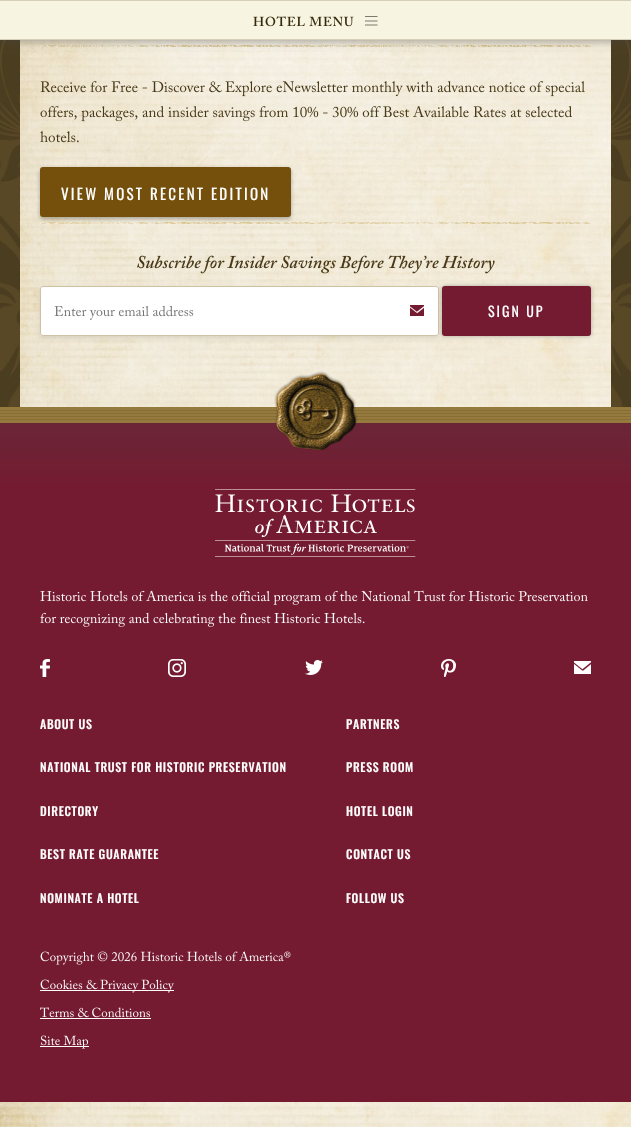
void draw(SkCanvas* canvas) {
    SkPaint paint;
    paint.setAntiAlias(true);
    auto spacedText = [&](const char* s, float x, float y, const SkFont& font, const SkPaint& ink, float letter, float word) {
        std::vector<SkGlyphID> glyphs(font.countText(s, strlen(s), SkTextEncoding::kUTF8));
        std::vector<float> xs(glyphs.size());
        font.textToGlyphs(s, strlen(s), SkTextEncoding::kUTF8, glyphs);
        font.getXPos(glyphs, xs, x);
        float extra = 0;
        for (size_t i = 0; i < glyphs.size(); i++) {
            xs[i] += extra;
            extra += letter + word * (glyphs[i] == font.unicharToGlyph(' '));
        }
        canvas->drawTextBlob(SkTextBlob::MakeFromPosHGlyphs(glyphs, xs, y, font), 0, 0, ink);
    };
    canvas->clear(0xFFFFFFFF);
    canvas->drawImageRect(SkImages::DeferredFromEncodedData(SkData::MakeFromFileName("img3.png")), SkRect::MakeXYWH(0, 40, 631, 367), SkSamplingOptions());
    canvas->drawImageRect(SkImages::DeferredFromEncodedData(SkData::MakeFromFileName("img4.png")), SkRect::MakeXYWH(20, 40, 591, 367), SkSamplingOptions());
    canvas->drawImageRect(SkImages::DeferredFromEncodedData(SkData::MakeFromFileName("img5.png")), SkRect::MakeXYWH(40, 45, 552, 2), SkSamplingOptions());
    paint.setColor(0x99444444);
    paint.setMaskFilter(SkMaskFilter::MakeBlur(kNormal_SkBlurStyle, 5));
    canvas->drawRect(SkRect::MakeXYWH(0, -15, 631, 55), paint);
    paint.setMaskFilter(nullptr);
    paint.setColor(0xFFF7F4E1);
    canvas->drawRect(SkRect::MakeXYWH(0, 1, 631, 38), paint);
    paint.setColor(0xFFD7CEB7);
    canvas->drawRect(SkRect::MakeXYWH(0, 0, 631, 1), paint);
    canvas->drawRect(SkRect::MakeXYWH(0, 39, 631, 1), paint);
    canvas->drawImageRect(SkImages::DeferredFromEncodedData(SkData::MakeFromFileName("img1.png")), SkRect::MakeXYWH(253, 16, 101, 11), SkSamplingOptions());
    canvas->drawImageRect(SkImages::DeferredFromEncodedData(SkData::MakeFromFileName("img2.png")), SkRect::MakeXYWH(365, 16, 13, 10), SkSamplingOptions());
    canvas->drawImageRect(SkImages::DeferredFromEncodedData(SkData::MakeFromFileName("img6.png")), SkRect::MakeXYWH(40, 81, 98, 12), SkSamplingOptions());
    canvas->drawImageRect(SkImages::DeferredFromEncodedData(SkData::MakeFromFileName("img7.png")), SkRect::MakeXYWH(142, 81, 443, 16), SkSamplingOptions());
    canvas->drawImageRect(SkImages::DeferredFromEncodedData(SkData::MakeFromFileName("img8.png")), SkRect::MakeXYWH(40, 106, 532, 16), SkSamplingOptions());
    canvas->drawImageRect(SkImages::DeferredFromEncodedData(SkData::MakeFromFileName("img9.png")), SkRect::MakeXYWH(40, 131, 39, 12), SkSamplingOptions());
    paint.setColor(0x4D000000);
    paint.setMaskFilter(SkMaskFilter::MakeBlur(kNormal_SkBlurStyle, 2));
    canvas->drawRoundRect(SkRect::MakeXYWH(40, 169, 251, 50), 3, 3, paint);
    paint.setMaskFilter(nullptr);
    paint.setColor(0xFF74500C);
    canvas->drawRoundRect(SkRect::MakeXYWH(40, 167, 251, 50), 3, 3, paint);
    SkFont font1(fontMgr->matchFamilyStyle("Oswald", SkFontStyle::Normal()), 15);
    font1.setSubpixel(true);
    paint.setColor(0xFFFFFFFF);
    spacedText("VIEW MOST RECENT EDITION", 61, 200, font1, paint, 2.25f, 0);
    canvas->drawImageRect(SkImages::DeferredFromEncodedData(SkData::MakeFromFileName("img10.png")), SkRect::MakeXYWH(40, 222, 551, 2), SkSamplingOptions());
    canvas->drawImageRect(SkImages::DeferredFromEncodedData(SkData::MakeFromFileName("img11.png")), SkRect::MakeXYWH(137, 255, 247, 19), SkSamplingOptions());
    canvas->drawImageRect(SkImages::DeferredFromEncodedData(SkData::MakeFromFileName("img12.png")), SkRect::MakeXYWH(388, 255, 107, 19), SkSamplingOptions());
    paint.setColor(0x1A000000);
    paint.setMaskFilter(SkMaskFilter::MakeBlur(kNormal_SkBlurStyle, 2));
    canvas->drawRoundRect(SkRect::MakeXYWH(40, 288, 399, 50), 3, 3, paint);
    paint.setMaskFilter(nullptr);
    paint.setColor(0xFFFFFFFF);
    canvas->drawRoundRect(SkRect::MakeXYWH(40, 286, 399, 50), 3, 3, paint);
    canvas->drawImageRect(SkImages::DeferredFromEncodedData(SkData::MakeFromFileName("img13.png")), SkRect::MakeXYWH(410, 305, 14, 11), SkSamplingOptions());
    paint.setStyle(SkPaint::kStroke_Style);
    paint.setStrokeWidth(1);
    paint.setColor(0xFFCDC2A4);
    canvas->drawRoundRect(SkRect::MakeXYWH(40.5f, 286.5f, 398, 49), 2.5f, 2.5f, paint);
    canvas->drawImageRect(SkImages::DeferredFromEncodedData(SkData::MakeFromFileName("img14.png")), SkRect::MakeXYWH(54, 305, 140, 15), SkSamplingOptions());
    paint.setStyle(SkPaint::kFill_Style);
    paint.setColor(0x4D000000);
    paint.setMaskFilter(SkMaskFilter::MakeBlur(kNormal_SkBlurStyle, 2));
    canvas->drawRoundRect(SkRect::MakeXYWH(442, 286, 149, 50), 3, 3, paint);
    paint.setMaskFilter(nullptr);
    paint.setColor(0xFF751B31);
    canvas->drawRoundRect(SkRect::MakeXYWH(442, 286, 149, 50), 3, 3, paint);
    SkFont font2(fontMgr->matchFamilyStyle("Oswald", SkFontStyle::Normal()), 14);
    font2.setSubpixel(true);
    paint.setColor(0xFFFFFFFF);
    spacedText("SIGN UP", 488, 317, font2, paint, 2, 0);
    canvas->drawImageRect(SkImages::DeferredFromEncodedData(SkData::MakeFromFileName("img16.png")), SkRect::MakeXYWH(0, 407, 631, 16), SkSamplingOptions());
    {
        const SkColor colors[] = {0xFF751B31, 0xFF6A2637};
        const float stops[] = {0, 1};
        const SkPoint ends[] = {{316, 486}, {316, 423}};
        paint.setShader(SkGradientShader::MakeLinear(ends, colors, stops, 2, SkTileMode::kClamp));
        paint.setAlpha(255);
    }
    canvas->drawRect(SkRect::MakeXYWH(0, 423, 631, 63), paint);
    canvas->drawImageRect(SkImages::DeferredFromEncodedData(SkData::MakeFromFileName("img15.png")), SkRect::MakeXYWH(274, 371, 84, 80), SkSamplingOptions());
    paint.setShader(nullptr);
    paint.setColor(0xFF751B31);
    canvas->drawRect(SkRect::MakeXYWH(0, 486, 631, 616), paint);
    canvas->drawImageRect(SkImages::DeferredFromEncodedData(SkData::MakeFromFileName("img17.png")), SkRect::MakeXYWH(215, 489, 201, 68), SkSamplingOptions());
    canvas->drawImageRect(SkImages::DeferredFromEncodedData(SkData::MakeFromFileName("img18.png")), SkRect::MakeXYWH(40, 590, 548, 15), SkSamplingOptions());
    canvas->drawImageRect(SkImages::DeferredFromEncodedData(SkData::MakeFromFileName("img19.png")), SkRect::MakeXYWH(40, 612, 325, 15), SkSamplingOptions());
    canvas->drawImageRect(SkImages::DeferredFromEncodedData(SkData::MakeFromFileName("img20.png")), SkRect::MakeXYWH(40, 659, 10, 18), SkSamplingOptions());
    canvas->drawImageRect(SkImages::DeferredFromEncodedData(SkData::MakeFromFileName("img21.png")), SkRect::MakeXYWH(168, 659, 18, 18), SkSamplingOptions());
    canvas->drawImageRect(SkImages::DeferredFromEncodedData(SkData::MakeFromFileName("img22.png")), SkRect::MakeXYWH(305, 660, 18, 15), SkSamplingOptions());
    canvas->drawImageRect(SkImages::DeferredFromEncodedData(SkData::MakeFromFileName("img23.png")), SkRect::MakeXYWH(441, 659, 15, 18), SkSamplingOptions());
    canvas->drawImageRect(SkImages::DeferredFromEncodedData(SkData::MakeFromFileName("img24.png")), SkRect::MakeXYWH(574, 661, 17, 13), SkSamplingOptions());
    SkFont font3(fontMgr->matchFamilyStyle("Oswald", SkFontStyle(500, SkFontStyle::kNormal_Width, SkFontStyle::kUpright_Slant)), 12);
    font3.setSubpixel(true);
    paint.setColor(0xFFFFFFFF);
    spacedText("ABOUT US", 40, 729, font3, paint, 0.65f, 0);
    spacedText("NATIONAL TRUST FOR HISTORIC PRESERVATION", 40, 772, font3, paint, 0.65f, 0);
    spacedText("DIRECTORY", 40, 816, font3, paint, 0.65f, 0);
    spacedText("BEST RATE GUARANTEE", 40, 859, font3, paint, 0.65f, 0);
    spacedText("NOMINATE A HOTEL", 40, 903, font3, paint, 0.65f, 0);
    spacedText("PARTNERS", 346, 729, font3, paint, 0.65f, 0);
    spacedText("PRESS ROOM", 346, 772, font3, paint, 0.65f, 0);
    spacedText("HOTEL LOGIN", 346, 816, font3, paint, 0.65f, 0);
    spacedText("CONTACT US", 346, 859, font3, paint, 0.65f, 0);
    spacedText("FOLLOW US", 346, 903, font3, paint, 0.65f, 0);
    canvas->drawImageRect(SkImages::DeferredFromEncodedData(SkData::MakeFromFileName("img25.png")), SkRect::MakeXYWH(40, 951, 251, 14), SkSamplingOptions());
    canvas->drawRect(SkRect::MakeXYWH(40, 990, 134, 1), paint);
    canvas->drawImageRect(SkImages::DeferredFromEncodedData(SkData::MakeFromFileName("img26.png")), SkRect::MakeXYWH(40, 979, 134, 14), SkSamplingOptions());
    canvas->drawImageRect(SkImages::DeferredFromEncodedData(SkData::MakeFromFileName("img27.png")), SkRect::MakeXYWH(39, 1007, 111, 11), SkSamplingOptions());
    canvas->drawRect(SkRect::MakeXYWH(40, 1018, 111, 1), paint);
    canvas->drawRect(SkRect::MakeXYWH(40, 1046, 49, 1), paint);
    canvas->drawImageRect(SkImages::DeferredFromEncodedData(SkData::MakeFromFileName("img28.png")), SkRect::MakeXYWH(40, 1035, 49, 14), SkSamplingOptions());
    canvas->drawImageRect(SkImages::DeferredFromEncodedData(SkData::MakeFromFileName("img29.png")), SkRect::MakeXYWH(0, 1102, 631, 25), SkSamplingOptions());
}
